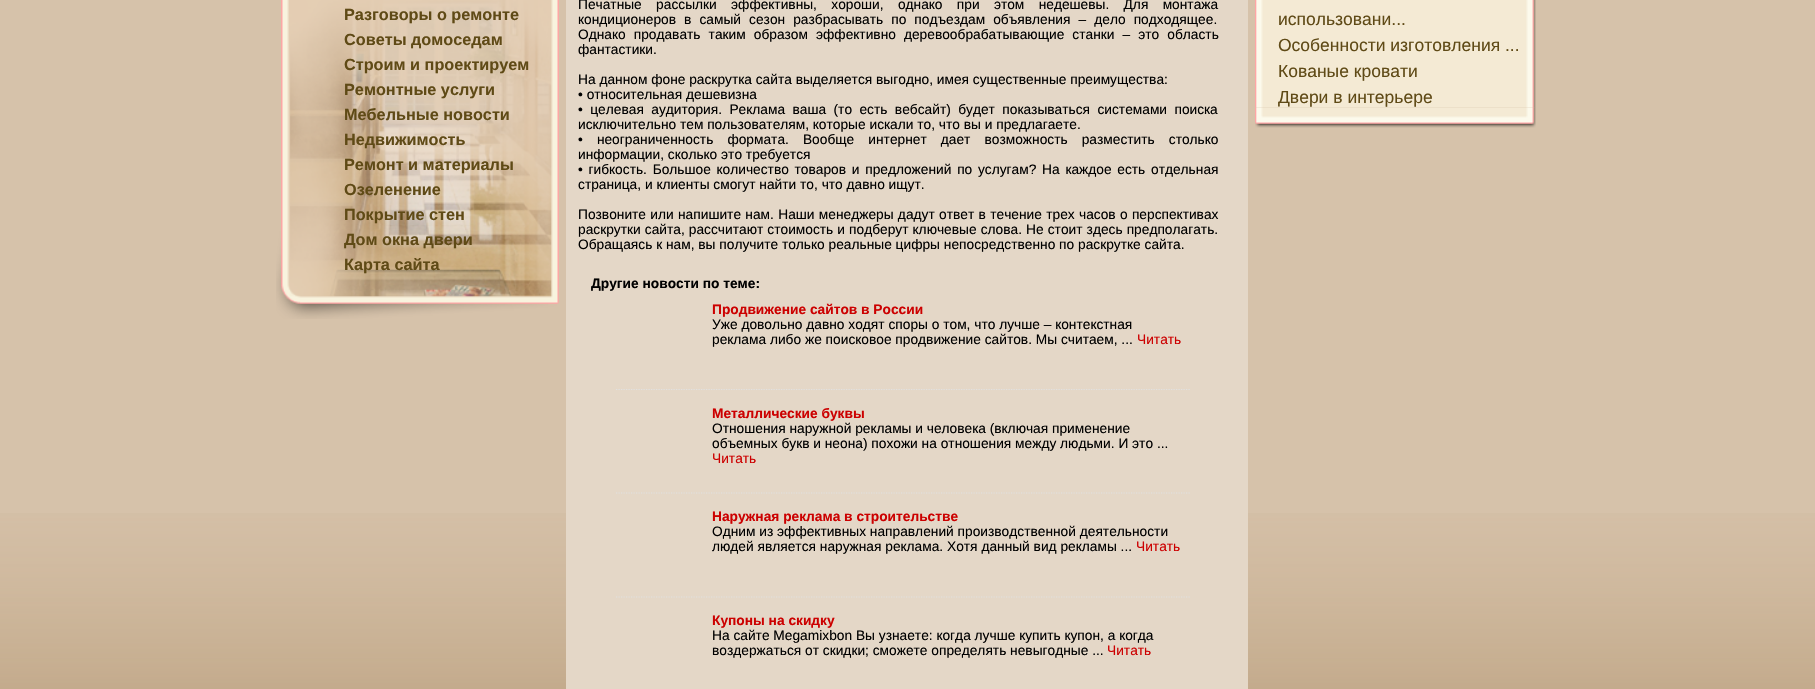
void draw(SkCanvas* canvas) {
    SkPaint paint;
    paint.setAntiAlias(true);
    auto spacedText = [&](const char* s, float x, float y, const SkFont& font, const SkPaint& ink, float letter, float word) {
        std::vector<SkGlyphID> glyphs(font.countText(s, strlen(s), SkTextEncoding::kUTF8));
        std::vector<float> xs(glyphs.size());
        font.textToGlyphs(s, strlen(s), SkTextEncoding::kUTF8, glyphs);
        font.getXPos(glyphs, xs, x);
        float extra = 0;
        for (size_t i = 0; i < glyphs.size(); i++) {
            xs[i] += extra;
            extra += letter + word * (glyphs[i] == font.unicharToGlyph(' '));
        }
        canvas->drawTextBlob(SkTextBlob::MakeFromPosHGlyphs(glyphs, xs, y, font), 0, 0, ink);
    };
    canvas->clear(0xFFD6C2AA);
    canvas->drawImageRect(SkImages::DeferredFromEncodedData(SkData::MakeFromFileName("img1.png")), SkRect::MakeXYWH(0, 513, 1815, 176), SkSamplingOptions());
    canvas->drawImageRect(SkImages::DeferredFromEncodedData(SkData::MakeFromFileName("img3.png")), SkRect::MakeXYWH(281, 0, 278, 288), SkSamplingOptions());
    canvas->drawImageRect(SkImages::DeferredFromEncodedData(SkData::MakeFromFileName("img2.png")), SkRect::MakeXYWH(276, 0, 283, 319), SkSamplingOptions());
    SkFont font1(fontMgr->matchFamilyStyle("Liberation Sans", SkFontStyle::Bold()), 16.25f);
    font1.setSubpixel(true);
    paint.setColor(0xFF5F4A16);
    canvas->drawString("Разговоры о ремонте", 344, 20, font1, paint);
    canvas->drawString("Советы домоседам", 344, 45, font1, paint);
    canvas->drawString("Строим и проектируем", 344, 70, font1, paint);
    canvas->drawString("Ремонтные услуги", 344, 95, font1, paint);
    canvas->drawString("Мебельные новости", 344, 120, font1, paint);
    canvas->drawString("Недвижимость", 344, 145, font1, paint);
    canvas->drawString("Ремонт и материалы", 344, 170, font1, paint);
    canvas->drawString("Озеленение", 344, 195, font1, paint);
    canvas->drawString("Покрытие стен", 344, 220, font1, paint);
    canvas->drawString("Дом окна двери", 344, 245, font1, paint);
    canvas->drawString("Карта сайта", 344, 270, font1, paint);
    paint.setColor(0xFFE4D7C7);
    canvas->drawRect(SkRect::MakeXYWH(566, 0, 682, 689), paint);
    SkFont font2(fontMgr->matchFamilyStyle("Liberation Sans", SkFontStyle::Normal()), 13.75f);
    font2.setSubpixel(true);
    paint.setColor(0xFF000000);
    spacedText("Печатные рассылки эффективны, хороши, однако при этом недешевы. Для монтажа", 578, 9, font2, paint, 0, 10.5f);
    spacedText("кондиционеров в самый сезон разбрасывать по подъездам объявления – дело подходящее.", 578, 24, font2, paint, 0, 4.25f);
    spacedText("Однако продавать таким образом эффективно деревообрабатывающие станки – это область", 578, 39, font2, paint, 0, 4.25f);
    canvas->drawString("фантастики.", 578, 54, font2, paint);
    canvas->drawString("На данном фоне раскрутка сайта выделяется выгодно, имея существенные преимущества:", 578, 84, font2, paint);
    canvas->drawString("• относительная дешевизна", 578, 99, font2, paint);
    spacedText("• целевая аудитория. Реклама ваша (то есть вебсайт) будет показываться системами поиска", 578, 114, font2, paint, 0, 3.6f);
    canvas->drawString("исключительно тем пользователям, которые искали то, что вы и предлагаете.", 578, 129, font2, paint);
    spacedText("• неограниченность формата. Вообще интернет дает возможность разместить столько", 578, 144, font2, paint, 0, 10.25f);
    canvas->drawString("информации, сколько это требуется", 578, 159, font2, paint);
    spacedText("• гибкость. Большое количество товаров и предложений по услугам? На каждое есть отдельная", 578, 174, font2, paint, 0, 1.9f);
    canvas->drawString("страница, и клиенты смогут найти то, что давно ищут.", 578, 189, font2, paint);
    spacedText("Позвоните или напишите нам. Наши менеджеры дадут ответ в течение трех часов о перспективах", 578, 219, font2, paint, 0, 0.5f);
    spacedText("раскрутки сайта, рассчитают стоимость и подберут ключевые слова. Не стоит здесь предполагать.", 578, 234, font2, paint, 0, 0.25f);
    canvas->drawString("Обращаясь к нам, вы получите только реальные цифры непосредственно по раскрутке сайта.", 578, 249, font2, paint);
    SkFont font3(fontMgr->matchFamilyStyle("Liberation Sans", SkFontStyle::Bold()), 13.75f);
    font3.setSubpixel(true);
    canvas->drawString("Другие новости по теме:", 591, 288, font3, paint);
    paint.setStyle(SkPaint::kStroke_Style);
    paint.setStrokeWidth(1.2f);
    paint.setColor(0xFFE1E1E1);
    paint.setPathEffect(SkDashPathEffect::Make({{1.25f, 1.25f}}, 0));
    canvas->drawPath(SkPathBuilder().moveTo(616, 389.5f).lineTo(1190, 389.5f).detach(), paint);
    paint.setPathEffect(nullptr);
    paint.setStyle(SkPaint::kFill_Style);
    paint.setColor(0xFFCC0000);
    canvas->drawString("Продвижение сайтов в России", 712, 314, font3, paint);
    paint.setColor(0xFF000000);
    canvas->drawString("Уже довольно давно ходят споры о том, что лучше – контекстная", 712, 329, font2, paint);
    canvas->drawString("реклама либо же поисковое продвижение сайтов. Мы считаем, ...", 712, 344, font2, paint);
    paint.setColor(0xFFCC0000);
    canvas->drawString("Читать", 1137, 344, font2, paint);
    paint.setStyle(SkPaint::kStroke_Style);
    paint.setColor(0xFFE1E1E1);
    paint.setPathEffect(SkDashPathEffect::Make({{1.25f, 1.25f}}, 0));
    canvas->drawPath(SkPathBuilder().moveTo(616, 493).lineTo(1190, 493).detach(), paint);
    paint.setPathEffect(nullptr);
    paint.setStyle(SkPaint::kFill_Style);
    paint.setColor(0xFFCC0000);
    canvas->drawString("Металлические буквы", 712, 418, font3, paint);
    paint.setColor(0xFF000000);
    canvas->drawString("Отношения наружной рекламы и человека (включая применение", 712, 433, font2, paint);
    canvas->drawString("объемных букв и неона) похожи на отношения между людьми. И это ...", 712, 448, font2, paint);
    paint.setColor(0xFFCC0000);
    canvas->drawString("Читать", 712, 463, font2, paint);
    paint.setStyle(SkPaint::kStroke_Style);
    paint.setColor(0xFFE1E1E1);
    paint.setPathEffect(SkDashPathEffect::Make({{1.25f, 1.25f}}, 0));
    canvas->drawPath(SkPathBuilder().moveTo(616, 597).lineTo(1190, 597).detach(), paint);
    paint.setPathEffect(nullptr);
    paint.setStyle(SkPaint::kFill_Style);
    paint.setColor(0xFFCC0000);
    canvas->drawString("Наружная реклама в строительстве", 712, 521, font3, paint);
    paint.setColor(0xFF000000);
    canvas->drawString("Одним из эффективных направлений производственной деятельности", 712, 536, font2, paint);
    canvas->drawString("людей является наружная реклама. Хотя данный вид рекламы ...", 712, 551, font2, paint);
    paint.setColor(0xFFCC0000);
    canvas->drawString("Читать", 1136, 551, font2, paint);
    canvas->drawString("Купоны на скидку", 712, 625, font3, paint);
    paint.setColor(0xFF000000);
    canvas->drawString("На сайте Megamixbon Вы узнаете: когда лучше купить купон, а когда", 712, 640, font2, paint);
    canvas->drawString("воздержаться от скидки; сможете определять невыгодные ...", 712, 655, font2, paint);
    paint.setColor(0xFFCC0000);
    canvas->drawString("Читать", 1107, 655, font2, paint);
    canvas->drawImageRect(SkImages::DeferredFromEncodedData(SkData::MakeFromFileName("img4.png")), SkRect::MakeXYWH(1255, 0, 281, 108), SkSamplingOptions());
    SkFont font4(fontMgr->matchFamilyStyle("Liberation Sans", SkFontStyle::Normal()), 17.5f);
    font4.setSubpixel(true);
    paint.setColor(0xFF5F4A16);
    canvas->drawString("использовани...", 1278, 25, font4, paint);
    canvas->drawString("Особенности изготовления ...", 1278, 51, font4, paint);
    canvas->drawString("Кованые кровати", 1278, 77, font4, paint);
    canvas->drawString("Двери в интерьере", 1278, 103, font4, paint);
    canvas->drawImageRect(SkImages::DeferredFromEncodedData(SkData::MakeFromFileName("img5.png")), SkRect::MakeXYWH(1255, 107, 281, 21), SkSamplingOptions());
}
